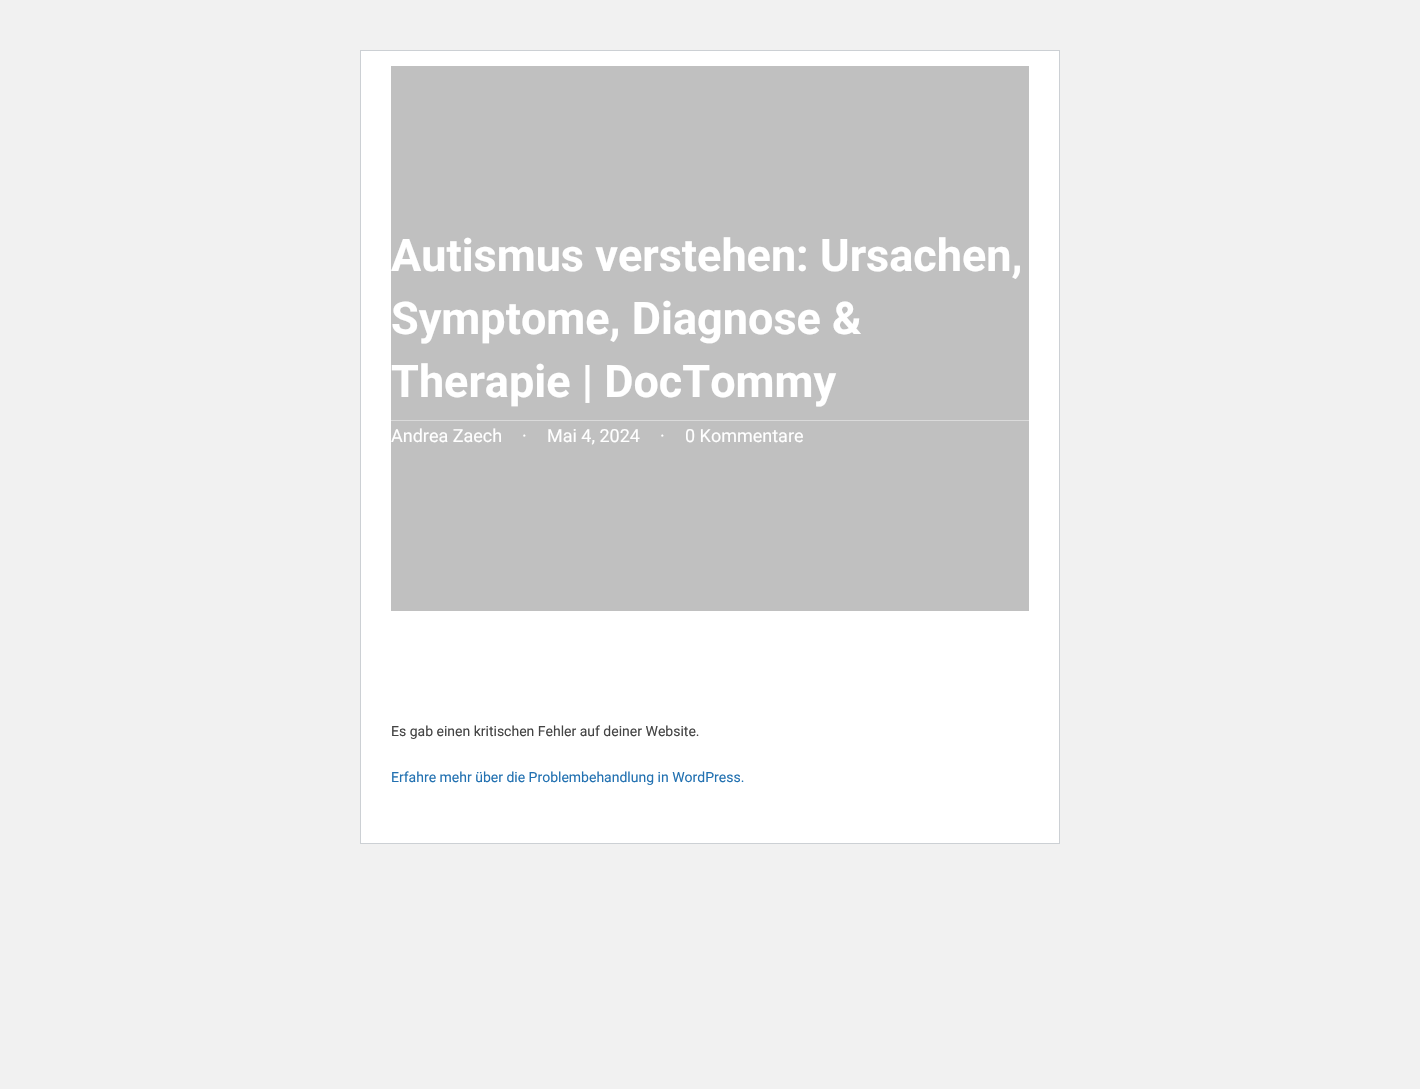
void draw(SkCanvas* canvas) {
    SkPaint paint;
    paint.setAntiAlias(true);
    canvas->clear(0xFFF1F1F1);
    paint.setColor(0xFFFFFFFF);
    canvas->drawRect(SkRect::MakeXYWH(360.5f, 50.5f, 699, 793), paint);
    paint.setStyle(SkPaint::kStroke_Style);
    paint.setStrokeWidth(1);
    paint.setColor(0xFFCCD0D4);
    canvas->drawRect(SkRect::MakeXYWH(360.5f, 50.5f, 699, 793), paint);
    paint.setStyle(SkPaint::kFill_Style);
    paint.setColor(0xFFC0C0C0);
    canvas->drawRect(SkRect::MakeXYWH(391, 66, 638, 545), paint);
    paint.setColor(0xFFDADADA);
    canvas->drawRect(SkRect::MakeXYWH(391, 420, 638, 1), paint);
    SkFont font1(fontMgr->matchFamilyStyle("Roboto", SkFontStyle::Bold()), 45);
    font1.setSubpixel(true);
    paint.setColor(0xFFFFFFFF);
    canvas->drawString("Autismus verstehen: Ursachen,", 391, 271, font1, paint);
    canvas->drawString("Symptome, Diagnose &", 391, 334, font1, paint);
    canvas->drawString("Therapie | DocTommy", 391, 397, font1, paint);
    SkFont font2(fontMgr->matchFamilyStyle("Roboto", SkFontStyle::Normal()), 18);
    font2.setSubpixel(true);
    canvas->drawString("Andrea Zaech", 391, 442, font2, paint);
    canvas->drawString("·", 522, 442, font2, paint);
    canvas->drawString("Mai 4, 2024", 547, 442, font2, paint);
    canvas->drawString("·", 660, 442, font2, paint);
    canvas->drawString("0 Kommentare", 685, 442, font2, paint);
    SkFont font3(fontMgr->matchFamilyStyle("Roboto", SkFontStyle::Normal()), 14);
    font3.setSubpixel(true);
    paint.setColor(0xFF444444);
    canvas->drawString("Es gab einen kritischen Fehler auf deiner Website.", 391, 736, font3, paint);
    paint.setColor(0xFF2271B1);
    canvas->drawString("Erfahre mehr über die Problembehandlung in WordPress.", 391, 782, font3, paint);
}
